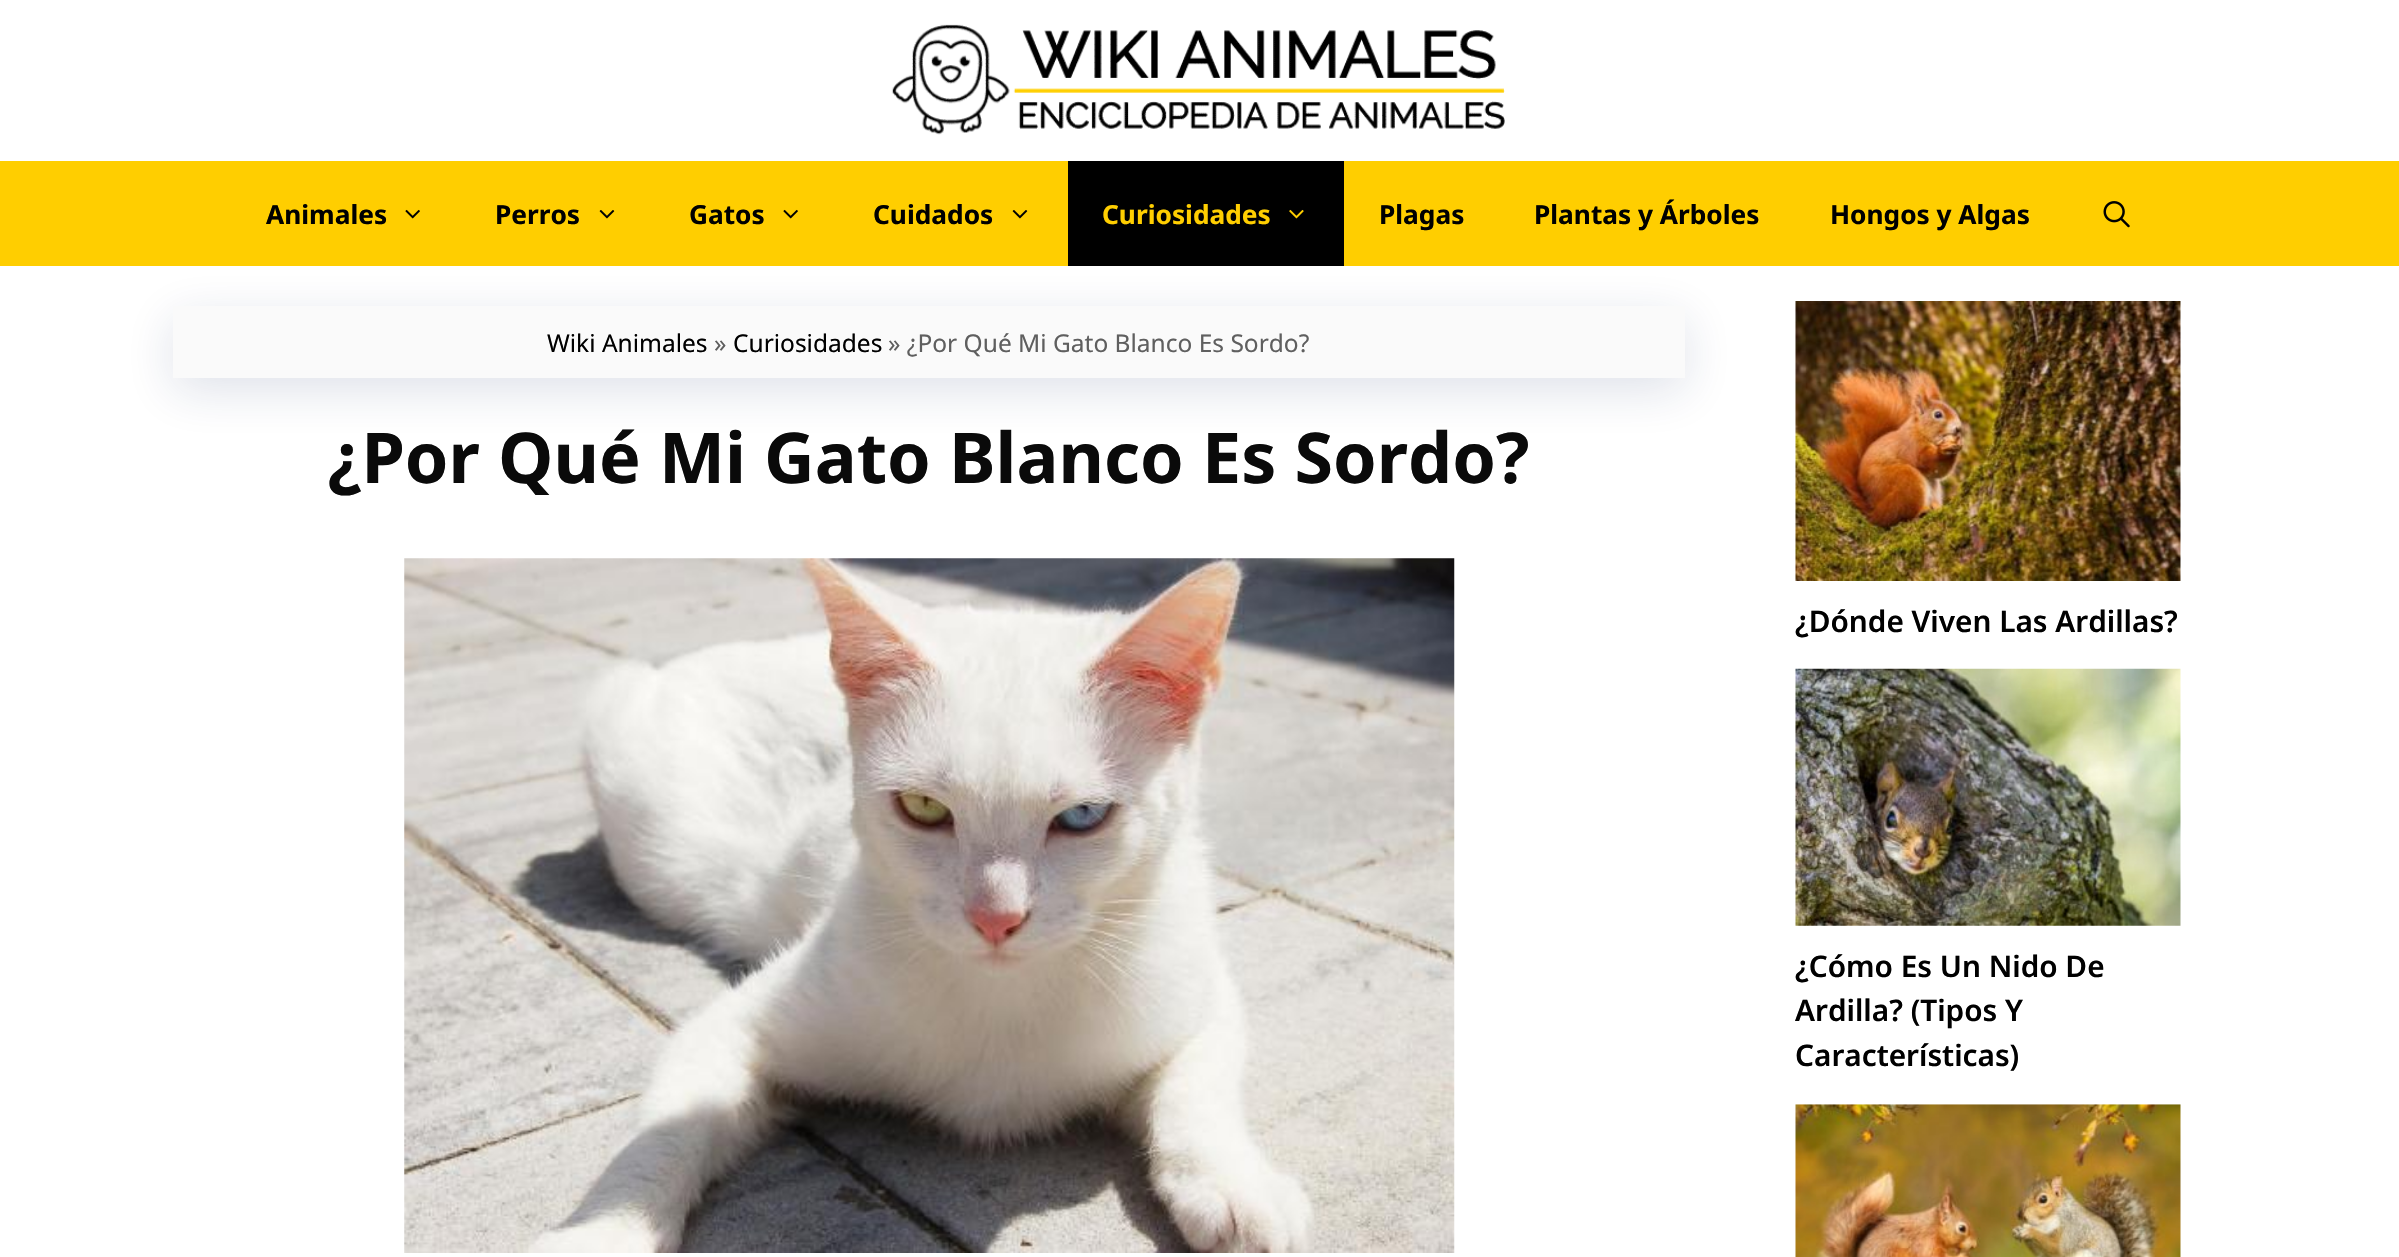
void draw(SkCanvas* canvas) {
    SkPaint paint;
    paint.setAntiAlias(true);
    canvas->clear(0xFFFFFFFF);
    canvas->drawImageRect(SkImages::DeferredFromEncodedData(SkData::MakeFromFileName("img1.png")), SkRect::MakeXYWH(891, 24, 614, 111), SkSamplingOptions());
    paint.setColor(0xFFFFCE00);
    canvas->drawRect(SkRect::MakeXYWH(0, 161, 2399, 105), paint);
    SkFont font1(fontMgr->matchFamilyStyle("Noto Sans", SkFontStyle::Bold()), 26.25f);
    font1.setSubpixel(true);
    paint.setColor(0xFF000000);
    canvas->drawString("Animales", 266, 224, font1, paint);
    canvas->drawImageRect(SkImages::DeferredFromEncodedData(SkData::MakeFromFileName("img2.png")), SkRect::MakeXYWH(405, 209, 15, 10), SkSamplingOptions());
    canvas->drawString("Perros", 495, 224, font1, paint);
    canvas->drawImageRect(SkImages::DeferredFromEncodedData(SkData::MakeFromFileName("img3.png")), SkRect::MakeXYWH(599, 210, 16, 9), SkSamplingOptions());
    canvas->drawString("Gatos", 689, 224, font1, paint);
    canvas->drawImageRect(SkImages::DeferredFromEncodedData(SkData::MakeFromFileName("img2.png")), SkRect::MakeXYWH(783, 209, 15, 10), SkSamplingOptions());
    canvas->drawString("Cuidados", 873, 224, font1, paint);
    canvas->drawImageRect(SkImages::DeferredFromEncodedData(SkData::MakeFromFileName("img3.png")), SkRect::MakeXYWH(1012, 210, 16, 9), SkSamplingOptions());
    paint.setColor(0x24172B63);
    paint.setMaskFilter(SkMaskFilter::MakeBlur(kNormal_SkBlurStyle, 24.5f));
    canvas->drawRect(SkRect::MakeXYWH(173, 319, 1512, 71), paint);
    paint.setMaskFilter(nullptr);
    paint.setColor(0xFF000000);
    canvas->drawRect(SkRect::MakeXYWH(1068, 161, 276, 105), paint);
    paint.setColor(0xFFFFCE00);
    canvas->drawString("Curiosidades", 1102, 224, font1, paint);
    canvas->drawImageRect(SkImages::DeferredFromEncodedData(SkData::MakeFromFileName("img4.png")), SkRect::MakeXYWH(1289, 209, 15, 10), SkSamplingOptions());
    paint.setColor(0xFF000000);
    canvas->drawString("Plagas", 1379, 224, font1, paint);
    canvas->drawString("Plantas y Árboles", 1534, 224, font1, paint);
    canvas->drawString("Hongos y Algas", 1830, 224, font1, paint);
    canvas->drawImageRect(SkImages::DeferredFromEncodedData(SkData::MakeFromFileName("img5.png")), SkRect::MakeXYWH(2103, 201, 27, 27), SkSamplingOptions());
    paint.setColor(0xFFFAFAFA);
    canvas->drawRect(SkRect::MakeXYWH(173, 306, 1512, 72), paint);
    SkFont font2(fontMgr->matchFamilyStyle("Noto Sans", SkFontStyle::Normal()), 24.5f);
    font2.setSubpixel(true);
    paint.setColor(0xFF000000);
    canvas->drawString("Wiki Animales", 547, 352, font2, paint);
    paint.setColor(0xFF5F5F5F);
    canvas->drawString("»", 714, 352, font2, paint);
    paint.setColor(0xFF000000);
    canvas->drawString("Curiosidades", 733, 352, font2, paint);
    paint.setColor(0xFF5F5F5F);
    canvas->drawString("» ¿Por Qué Mi Gato Blanco Es Sordo?", 888, 352, font2, paint);
    SkFont font3(fontMgr->matchFamilyStyle("Noto Sans", SkFontStyle::Bold()), 70);
    font3.setSubpixel(true);
    paint.setColor(0xFF0A0A0A);
    canvas->drawString("¿Por Qué Mi Gato Blanco Es Sordo?", 328, 483, font3, paint);
    canvas->drawImageRect(SkImages::DeferredFromEncodedData(SkData::MakeFromFileName("img6.png")), SkRect::MakeXYWH(404, 558, 1051, 695), SkSamplingOptions());
    canvas->drawImageRect(SkImages::DeferredFromEncodedData(SkData::MakeFromFileName("img7.png")), SkRect::MakeXYWH(1795, 301, 386, 280), SkSamplingOptions());
    SkFont font4(fontMgr->matchFamilyStyle("Noto Sans", SkFontStyle(600, SkFontStyle::kNormal_Width, SkFontStyle::kUpright_Slant)), 29.75f);
    font4.setSubpixel(true);
    paint.setColor(0xFF000000);
    canvas->drawString("¿Dónde Viven Las Ardillas?", 1795, 632, font4, paint);
    canvas->drawImageRect(SkImages::DeferredFromEncodedData(SkData::MakeFromFileName("img8.png")), SkRect::MakeXYWH(1795, 668, 386, 258), SkSamplingOptions());
    canvas->drawString("¿Cómo Es Un Nido De", 1795, 977, font4, paint);
    canvas->drawString("Ardilla? (Tipos Y", 1795, 1021, font4, paint);
    canvas->drawString("Características)", 1795, 1066, font4, paint);
    canvas->drawImageRect(SkImages::DeferredFromEncodedData(SkData::MakeFromFileName("img9.png")), SkRect::MakeXYWH(1795, 1104, 386, 153), SkSamplingOptions());
}
